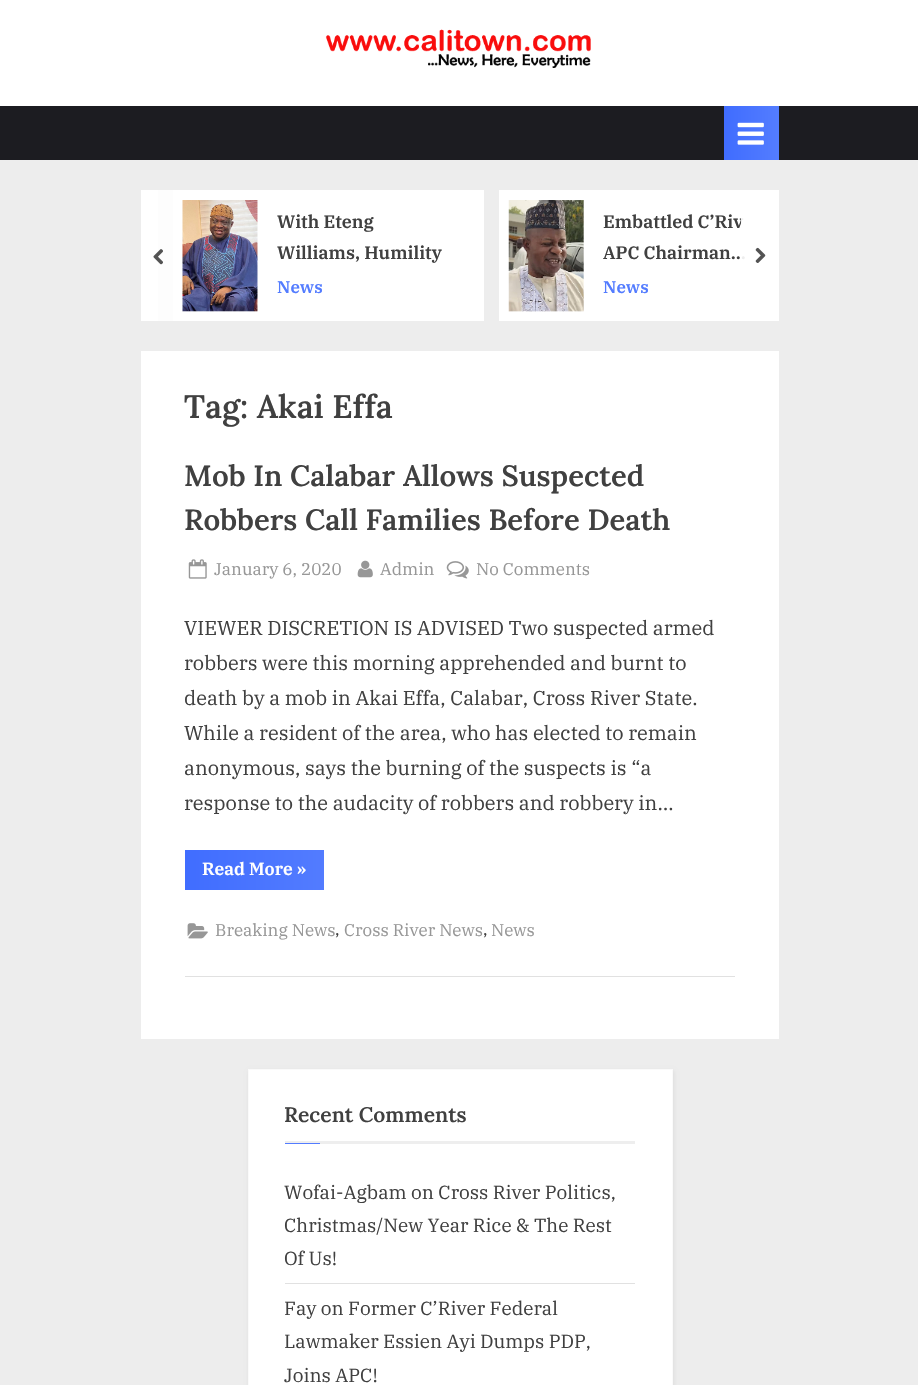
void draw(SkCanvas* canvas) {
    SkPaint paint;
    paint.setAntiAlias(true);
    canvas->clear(0xFFEDEDED);
    paint.setColor(0xFFFDFDFD);
    canvas->drawRect(SkRect::MakeXYWH(158, 190, 15, 131), paint);
    paint.setColor(0xFFFFFFFF);
    canvas->drawRect(SkRect::MakeXYWH(0, 0, 918, 106), paint);
    canvas->drawImageRect(SkImages::DeferredFromEncodedData(SkData::MakeFromFileName("img1.png")), SkRect::MakeXYWH(325, 29, 266, 39), SkSamplingOptions());
    paint.setColor(0xFF1C1C21);
    canvas->drawRect(SkRect::MakeXYWH(0, 106, 918, 54), paint);
    {
        const SkColor colors[] = {0xFF406DFF, 0xFF537CFF, 0xFF406DFF};
        const float stops[] = {0, 0.51f, 1};
        const SkPoint ends[] = {{626, 133}, {726, 133}};
        paint.setShader(SkGradientShader::MakeLinear(ends, colors, stops, 3, SkTileMode::kClamp));
        paint.setAlpha(255);
    }
    canvas->drawRect(SkRect::MakeXYWH(724, 106, 2, 54), paint);
    {
        const SkColor colors[] = {0xFF406DFF, 0xFF537CFF, 0xFF406DFF};
        const float stops[] = {0, 0.51f, 1};
        const SkPoint ends[] = {{726, 133}, {826, 133}};
        paint.setShader(SkGradientShader::MakeLinear(ends, colors, stops, 3, SkTileMode::kClamp));
        paint.setAlpha(255);
    }
    canvas->drawRect(SkRect::MakeXYWH(726, 106, 53, 54), paint);
    canvas->drawImageRect(SkImages::DeferredFromEncodedData(SkData::MakeFromFileName("img2.png")), SkRect::MakeXYWH(737, 122, 27, 23), SkSamplingOptions());
    paint.setShader(nullptr);
    paint.setColor(0xFFFFFFFF);
    canvas->drawRect(SkRect::MakeXYWH(141, 190, 17, 131), paint);
    canvas->drawRect(SkRect::MakeXYWH(173, 190, 311, 131), paint);
    canvas->drawImageRect(SkImages::DeferredFromEncodedData(SkData::MakeFromFileName("img3.png")), SkRect::MakeXYWH(182, 200, 76, 112), SkSamplingOptions());
    SkFont font1(fontMgr->matchFamilyStyle("IBM Plex Serif", SkFontStyle(600, SkFontStyle::kNormal_Width, SkFontStyle::kUpright_Slant)), 18);
    font1.setSubpixel(true);
    paint.setColor(0xFF404040);
    canvas->drawString("With Eteng", 277, 228, font1, paint);
    canvas->drawString("Williams, Humility", 277, 259, font1, paint);
    SkFont font2(fontMgr->matchFamilyStyle("IBM Plex Serif", SkFontStyle(600, SkFontStyle::kNormal_Width, SkFontStyle::kUpright_Slant)), 17);
    font2.setSubpixel(true);
    paint.setColor(0xFF537CFF);
    canvas->drawString("News", 277, 293, font2, paint);
    paint.setColor(0xFFFFFFFF);
    canvas->drawRect(SkRect::MakeXYWH(499, 190, 280, 131), paint);
    canvas->drawImageRect(SkImages::DeferredFromEncodedData(SkData::MakeFromFileName("img4.png")), SkRect::MakeXYWH(508, 200, 76, 112), SkSamplingOptions());
    paint.setColor(0xFF404040);
    canvas->drawString("Embattled C’Riv", 603, 228, font1, paint);
    canvas->drawString("APC Chairman…", 603, 259, font1, paint);
    paint.setColor(0xFF537CFF);
    canvas->drawString("News", 603, 293, font2, paint);
    canvas->drawImageRect(SkImages::DeferredFromEncodedData(SkData::MakeFromFileName("img5.png")), SkRect::MakeXYWH(153, 249, 10, 16), SkSamplingOptions());
    paint.setColor(0xE6FFFFFF);
    canvas->drawRect(SkRect::MakeXYWH(741, 218, 4, 42), paint);
    canvas->drawImageRect(SkImages::DeferredFromEncodedData(SkData::MakeFromFileName("img6.png")), SkRect::MakeXYWH(755, 247, 11, 16), SkSamplingOptions());
    paint.setColor(0xFFFFFFFF);
    canvas->drawRect(SkRect::MakeXYWH(141, 351, 638, 688), paint);
    SkFont font3(fontMgr->matchFamilyStyle("Lora", SkFontStyle(600, SkFontStyle::kNormal_Width, SkFontStyle::kUpright_Slant)), 32.5f);
    font3.setSubpixel(true);
    paint.setColor(0xFF404040);
    canvas->drawString("Tag: Akai Effa", 184, 418, font3, paint);
    paint.setColor(0xFFE1E1E1);
    canvas->drawRect(SkRect::MakeXYWH(185, 976, 550, 1), paint);
    SkFont font4(fontMgr->matchFamilyStyle("Lora", SkFontStyle(600, SkFontStyle::kNormal_Width, SkFontStyle::kUpright_Slant)), 29.25f);
    font4.setSubpixel(true);
    paint.setColor(0xFF404040);
    canvas->drawString("Mob In Calabar Allows Suspected", 184, 486, font4, paint);
    canvas->drawString("Robbers Call Families Before Death", 184, 530, font4, paint);
    canvas->drawImageRect(SkImages::DeferredFromEncodedData(SkData::MakeFromFileName("img7.png")), SkRect::MakeXYWH(188, 559, 19, 20), SkSamplingOptions());
    SkFont font5(fontMgr->matchFamilyStyle("IBM Plex Serif", SkFontStyle::Normal()), 17);
    font5.setSubpixel(true);
    paint.setColor(0xFF979797);
    canvas->drawString("January 6, 2020", 214, 575, font5, paint);
    canvas->drawImageRect(SkImages::DeferredFromEncodedData(SkData::MakeFromFileName("img8.png")), SkRect::MakeXYWH(357, 560, 16, 18), SkSamplingOptions());
    canvas->drawString("Admin", 380, 575, font5, paint);
    canvas->drawImageRect(SkImages::DeferredFromEncodedData(SkData::MakeFromFileName("img9.png")), SkRect::MakeXYWH(446, 561, 23, 18), SkSamplingOptions());
    canvas->drawString("No Comments", 476, 575, font5, paint);
    SkFont font6(fontMgr->matchFamilyStyle("IBM Plex Serif", SkFontStyle::Normal()), 20);
    font6.setSubpixel(true);
    paint.setColor(0xFF404040);
    canvas->drawString("VIEWER DISCRETION IS ADVISED Two suspected armed", 184, 635, font6, paint);
    canvas->drawString("robbers were this morning apprehended and burnt to", 184, 670, font6, paint);
    canvas->drawString("death by a mob in Akai Effa, Calabar, Cross River State.", 184, 705, font6, paint);
    canvas->drawString("While a resident of the area, who has elected to remain", 184, 740, font6, paint);
    canvas->drawString("anonymous, says the burning of the suspects is “a", 184, 775, font6, paint);
    canvas->drawString("response to the audacity of robbers and robbery in…", 184, 810, font6, paint);
    {
        const SkColor colors[] = {0xFF406DFF, 0xFF537CFF, 0xFF406DFF};
        const float stops[] = {0, 0.51f, 1};
        const SkPoint ends[] = {{185, 870}, {463, 870}};
        paint.setShader(SkGradientShader::MakeLinear(ends, colors, stops, 3, SkTileMode::kClamp));
        paint.setAlpha(255);
    }
    canvas->drawRect(SkRect::MakeXYWH(185, 850, 139, 40), paint);
    SkFont font7(fontMgr->matchFamilyStyle("IBM Plex Serif", SkFontStyle(600, SkFontStyle::kNormal_Width, SkFontStyle::kUpright_Slant)), 17.5f);
    font7.setSubpixel(true);
    paint.setShader(nullptr);
    paint.setColor(0xFFFFFFFF);
    canvas->drawString("Read More »", 202, 875, font7, paint);
    canvas->drawImageRect(SkImages::DeferredFromEncodedData(SkData::MakeFromFileName("img10.png")), SkRect::MakeXYWH(187, 923, 21, 16), SkSamplingOptions());
    paint.setColor(0xFF979797);
    canvas->drawString("Breaking News", 215, 936, font5, paint);
    paint.setColor(0xFF404040);
    canvas->drawString(",", 335, 935, font5, paint);
    paint.setColor(0xFF979797);
    canvas->drawString("Cross River News", 344, 936, font5, paint);
    paint.setColor(0xFF404040);
    canvas->drawString(",", 483, 935, font5, paint);
    paint.setColor(0xFF979797);
    canvas->drawString("News", 491, 936, font5, paint);
    paint.setColor(0x12000000);
    paint.setMaskFilter(SkMaskFilter::MakeBlur(kNormal_SkBlurStyle, 2));
    canvas->drawRect(SkRect::MakeXYWH(249, 1071, 425, 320), paint);
    paint.setMaskFilter(nullptr);
    paint.setColor(0xFFFFFFFF);
    canvas->drawRect(SkRect::MakeXYWH(248.5f, 1069.5f, 424, 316), paint);
    paint.setStyle(SkPaint::kStroke_Style);
    paint.setStrokeWidth(1);
    paint.setColor(0xFFFAFAFA);
    canvas->drawRect(SkRect::MakeXYWH(248.5f, 1069.5f, 424, 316), paint);
    paint.setStyle(SkPaint::kFill_Style);
    paint.setColor(0xFFEEEEEE);
    canvas->drawRect(SkRect::MakeXYWH(285, 1141, 350, 3), paint);
    SkFont font8(fontMgr->matchFamilyStyle("Lora", SkFontStyle(600, SkFontStyle::kNormal_Width, SkFontStyle::kUpright_Slant)), 21);
    font8.setSubpixel(true);
    paint.setColor(0xFF404040);
    canvas->drawString("Recent Comments", 284, 1122, font8, paint);
    paint.setColor(0xFF537CFF);
    canvas->drawRect(SkRect::MakeXYWH(285, 1143, 35, 1), paint);
    paint.setColor(0xFFE1E1E1);
    canvas->drawRect(SkRect::MakeXYWH(285, 1283, 350, 1), paint);
    SkFont font9(fontMgr->matchFamilyStyle("IBM Plex Serif", SkFontStyle::Normal()), 19);
    font9.setSubpixel(true);
    paint.setColor(0xFF404040);
    canvas->drawString("Wofai-Agbam on Cross River Politics,", 284, 1199, font9, paint);
    canvas->drawString("Christmas/New Year Rice & The Rest", 284, 1232, font9, paint);
    canvas->drawString("Of Us!", 284, 1265, font9, paint);
    canvas->drawString("Fay on Former C’River Federal", 284, 1315, font9, paint);
    canvas->drawString("Lawmaker Essien Ayi Dumps PDP,", 284, 1348, font9, paint);
    canvas->drawString("Joins APC!", 284, 1382, font9, paint);
}
